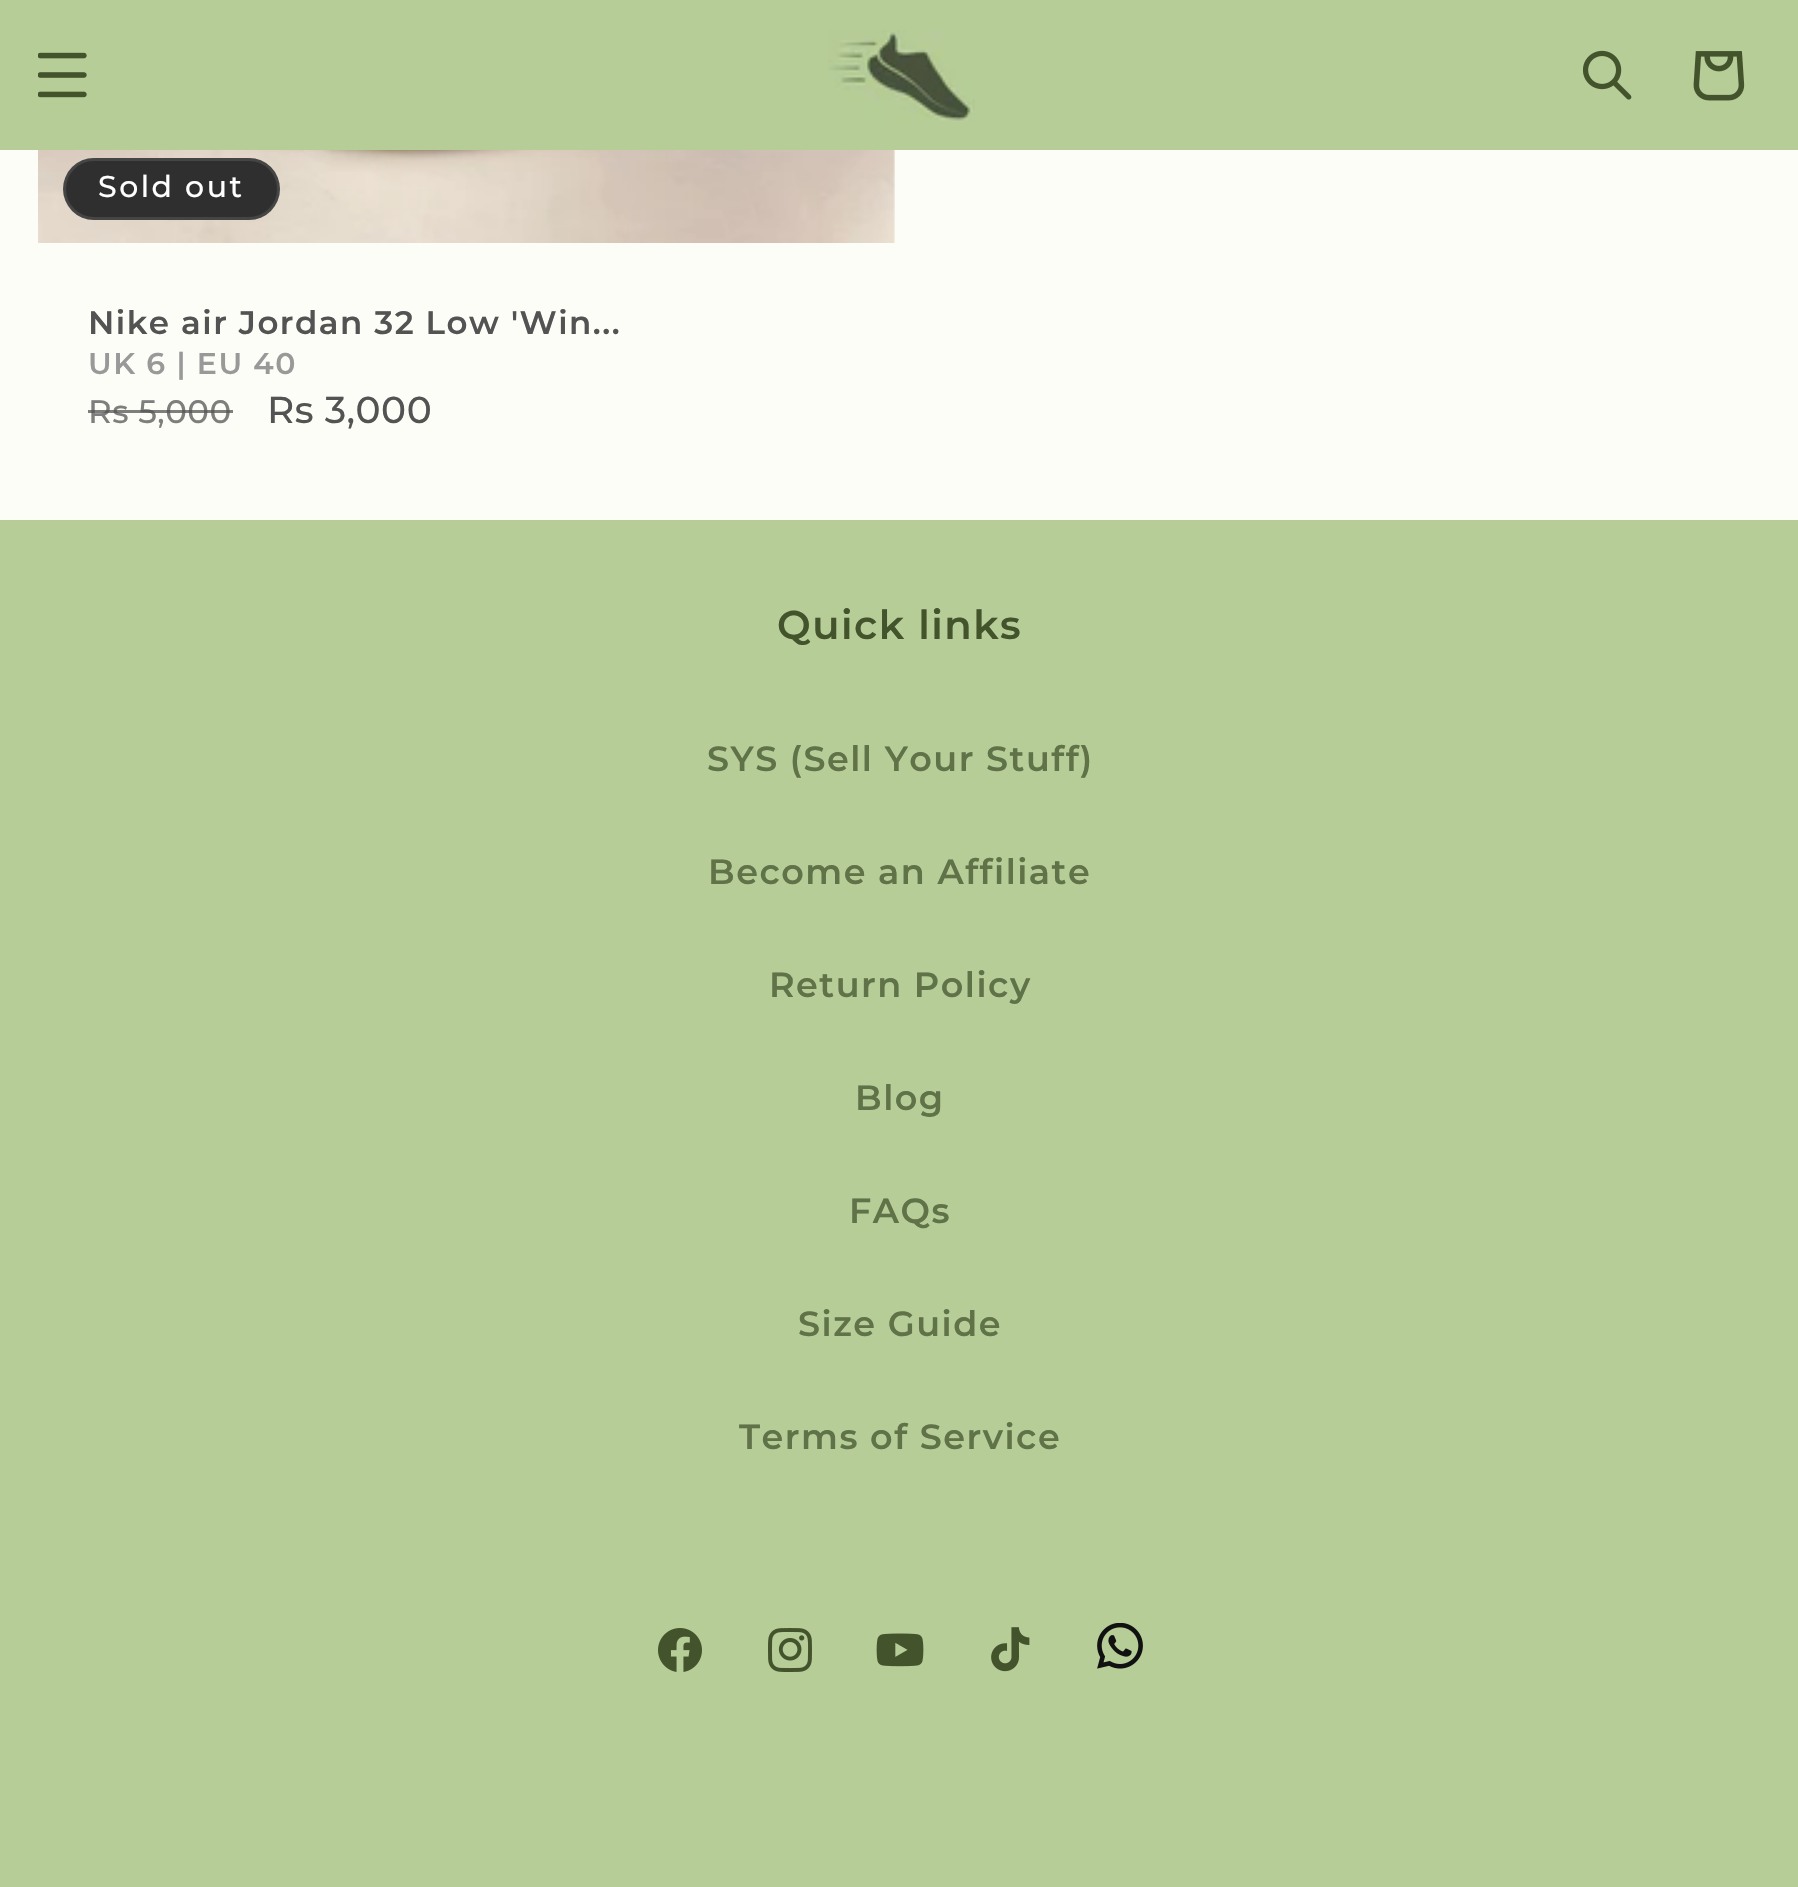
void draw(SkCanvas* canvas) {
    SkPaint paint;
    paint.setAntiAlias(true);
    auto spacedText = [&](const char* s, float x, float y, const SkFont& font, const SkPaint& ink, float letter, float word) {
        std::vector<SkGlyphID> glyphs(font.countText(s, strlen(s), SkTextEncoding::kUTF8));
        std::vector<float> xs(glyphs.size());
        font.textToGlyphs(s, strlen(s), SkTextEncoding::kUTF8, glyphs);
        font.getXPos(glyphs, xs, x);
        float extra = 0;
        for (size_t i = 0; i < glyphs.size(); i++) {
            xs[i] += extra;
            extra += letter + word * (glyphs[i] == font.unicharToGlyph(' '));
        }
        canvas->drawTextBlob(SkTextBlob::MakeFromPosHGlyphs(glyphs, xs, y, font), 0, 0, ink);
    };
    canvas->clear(0xFFFDFDF8);
    paint.setColor(0xFFB6CD98);
    canvas->drawRect(SkRect::MakeXYWH(0, 0, 1798, 150), paint);
    canvas->drawImageRect(SkImages::DeferredFromEncodedData(SkData::MakeFromFileName("img1.png")), SkRect::MakeXYWH(38, 52, 49, 46), SkSamplingOptions());
    canvas->drawImageRect(SkImages::DeferredFromEncodedData(SkData::MakeFromFileName("img2.png")), SkRect::MakeXYWH(828, 30, 147, 92), SkSamplingOptions());
    canvas->drawImageRect(SkImages::DeferredFromEncodedData(SkData::MakeFromFileName("img3.png")), SkRect::MakeXYWH(1583, 50, 49, 50), SkSamplingOptions());
    canvas->drawImageRect(SkImages::DeferredFromEncodedData(SkData::MakeFromFileName("img4.png")), SkRect::MakeXYWH(1693, 51, 52, 50), SkSamplingOptions());
    canvas->drawImageRect(SkImages::DeferredFromEncodedData(SkData::MakeFromFileName("img5.png")), SkRect::MakeXYWH(38, 150, 857, 93), SkSamplingOptions());
    paint.setColor(0xFF2F2F2F);
    canvas->drawRoundRect(SkRect::MakeXYWH(63, 158, 217, 62), 31, 31, paint);
    paint.setStyle(SkPaint::kStroke_Style);
    paint.setStrokeWidth(3);
    paint.setColor(0x1AFFFFFF);
    canvas->drawRoundRect(SkRect::MakeXYWH(64.5f, 159.5f, 214, 59), 29.5f, 29.5f, paint);
    SkFont font1(fontMgr->matchFamilyStyle("Montserrat", SkFontStyle(500, SkFontStyle::kNormal_Width, SkFontStyle::kUpright_Slant)), 30);
    font1.setSubpixel(true);
    paint.setStyle(SkPaint::kFill_Style);
    paint.setColor(0xFFFFFFFF);
    spacedText("Sold out", 98, 197, font1, paint, 2.5f, 0);
    SkFont font2(fontMgr->matchFamilyStyle("Montserrat", SkFontStyle(600, SkFontStyle::kNormal_Width, SkFontStyle::kUpright_Slant)), 32.5f);
    font2.setSubpixel(true);
    paint.setColor(0xFF535353);
    spacedText("Nike air Jordan 32 Low 'Win...", 88, 334, font2, paint, 1.5f, 0);
    SkFont font3(fontMgr->matchFamilyStyle("Montserrat", SkFontStyle(600, SkFontStyle::kNormal_Width, SkFontStyle::kUpright_Slant)), 30);
    font3.setSubpixel(true);
    paint.setColor(0xFF999999);
    spacedText("UK 6 | EU 40", 88, 374, font3, paint, 1.5f, 0);
    SkFont font4(fontMgr->matchFamilyStyle("Montserrat", SkFontStyle(500, SkFontStyle::kNormal_Width, SkFontStyle::kUpright_Slant)), 32.5f);
    font4.setSubpixel(true);
    paint.setColor(0xFF7E7E7C);
    spacedText("Rs 5,000", 88, 423, font4, paint, 0.5f, 0);
    paint.setColor(0xBF535353);
    canvas->drawRect(SkRect::MakeXYWH(88, 410, 145, 3), paint);
    SkFont font5(fontMgr->matchFamilyStyle("Montserrat", SkFontStyle(500, SkFontStyle::kNormal_Width, SkFontStyle::kUpright_Slant)), 37.5f);
    font5.setSubpixel(true);
    paint.setColor(0xFF535353);
    spacedText("Rs 3,000", 267, 423, font5, paint, 0.5f, 0);
    paint.setColor(0xFFB6CD98);
    canvas->drawRect(SkRect::MakeXYWH(0, 520, 1798, 1367), paint);
    SkFont font6(fontMgr->matchFamilyStyle("Montserrat", SkFontStyle(600, SkFontStyle::kNormal_Width, SkFontStyle::kUpright_Slant)), 40);
    font6.setSubpixel(true);
    paint.setColor(0xFF43542C);
    spacedText("Quick links", 777, 639, font6, paint, 1.5f, 0);
    SkFont font7(fontMgr->matchFamilyStyle("Montserrat", SkFontStyle(600, SkFontStyle::kNormal_Width, SkFontStyle::kUpright_Slant)), 35);
    font7.setSubpixel(true);
    paint.setColor(0xFF607247);
    spacedText("SYS (Sell Your Stuff)", 707, 771, font7, paint, 1.5f, 0);
    spacedText("Become an Affiliate", 708, 884, font7, paint, 1.5f, 0);
    spacedText("Return Policy", 769, 997, font7, paint, 1.5f, 0);
    spacedText("Blog", 855, 1110, font7, paint, 1.5f, 0);
    spacedText("FAQs", 849, 1223, font7, paint, 1.5f, 0);
    spacedText("Size Guide", 798, 1336, font7, paint, 1.5f, 0);
    spacedText("Terms of Service", 739, 1449, font7, paint, 1.5f, 0);
    canvas->drawImageRect(SkImages::DeferredFromEncodedData(SkData::MakeFromFileName("img6.png")), SkRect::MakeXYWH(658, 1628, 44, 44), SkSamplingOptions());
    canvas->drawImageRect(SkImages::DeferredFromEncodedData(SkData::MakeFromFileName("img7.png")), SkRect::MakeXYWH(768, 1628, 44, 44), SkSamplingOptions());
    canvas->drawImageRect(SkImages::DeferredFromEncodedData(SkData::MakeFromFileName("img8.png")), SkRect::MakeXYWH(876, 1633, 48, 34), SkSamplingOptions());
    canvas->drawImageRect(SkImages::DeferredFromEncodedData(SkData::MakeFromFileName("img9.png")), SkRect::MakeXYWH(991, 1627, 39, 45), SkSamplingOptions());
    canvas->drawImageRect(SkImages::DeferredFromEncodedData(SkData::MakeFromFileName("img10.png")), SkRect::MakeXYWH(1097, 1623, 46, 46), SkSamplingOptions());
}
